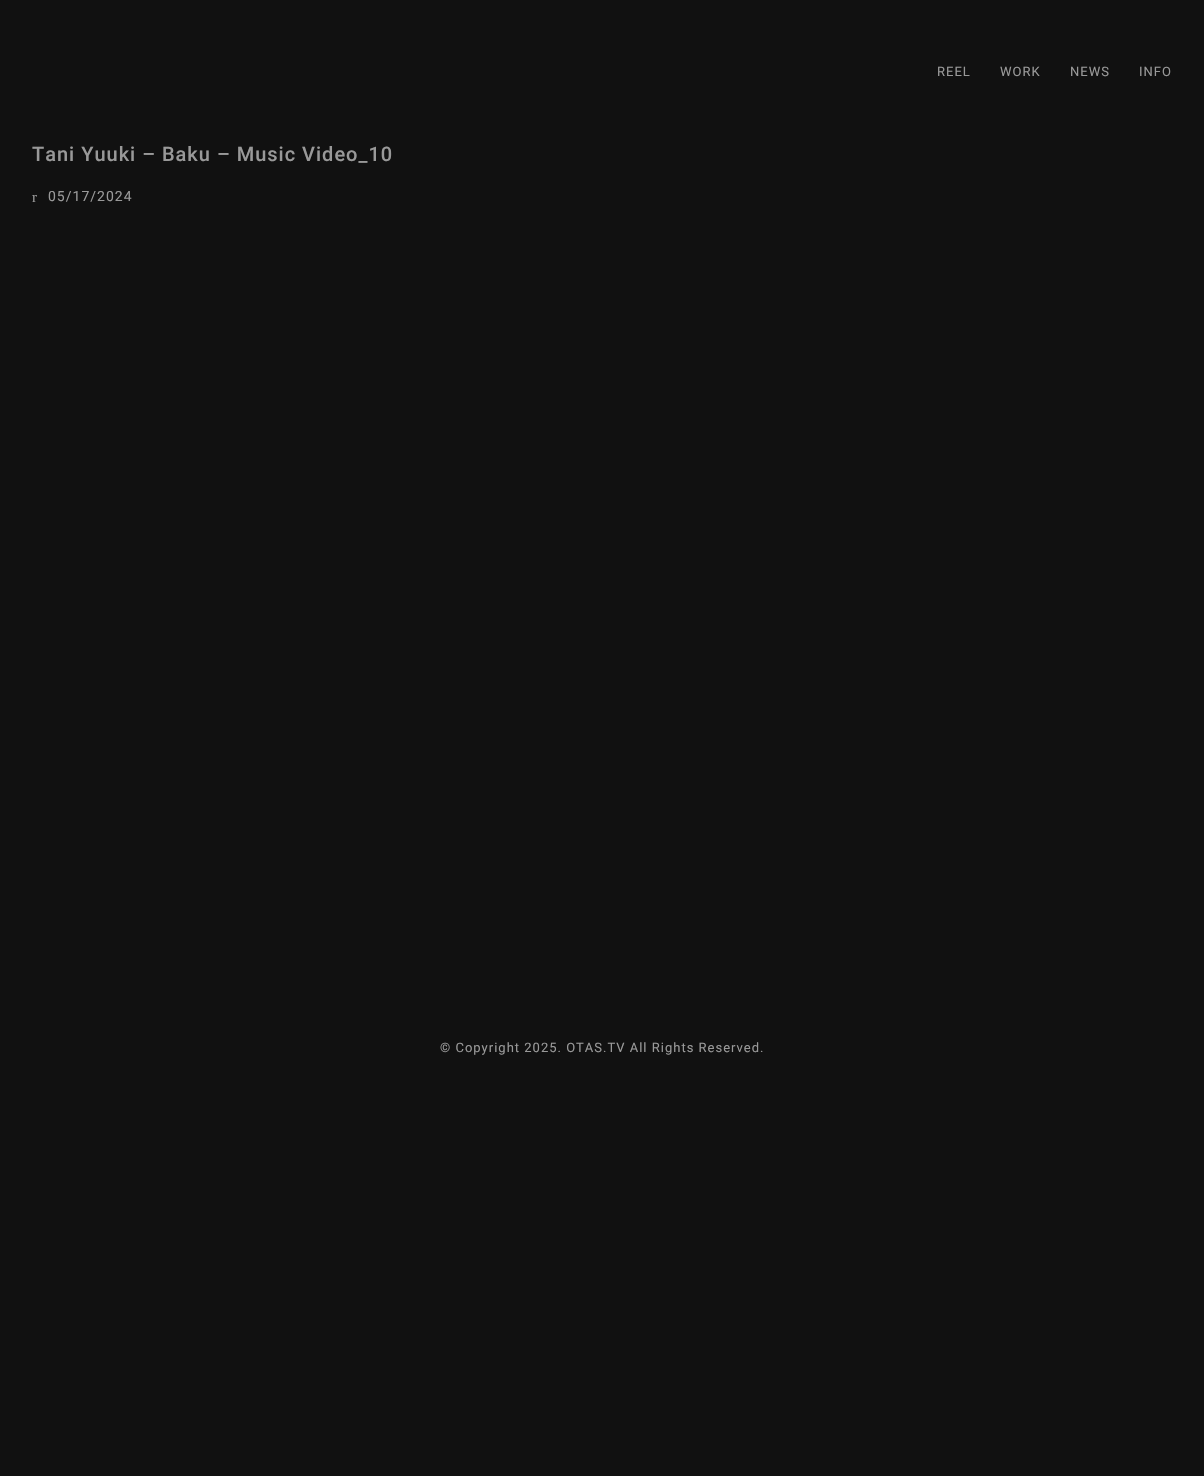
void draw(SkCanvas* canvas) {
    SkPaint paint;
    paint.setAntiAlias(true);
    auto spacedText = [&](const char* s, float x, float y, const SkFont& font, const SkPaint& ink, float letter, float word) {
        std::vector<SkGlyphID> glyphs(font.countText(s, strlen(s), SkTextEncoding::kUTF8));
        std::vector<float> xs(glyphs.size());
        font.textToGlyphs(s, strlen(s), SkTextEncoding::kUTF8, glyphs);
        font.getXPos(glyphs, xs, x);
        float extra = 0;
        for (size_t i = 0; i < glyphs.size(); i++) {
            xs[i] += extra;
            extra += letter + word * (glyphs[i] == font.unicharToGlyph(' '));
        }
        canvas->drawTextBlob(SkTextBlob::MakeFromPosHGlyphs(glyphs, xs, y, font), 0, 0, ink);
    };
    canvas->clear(0xFF111111);
    SkFont font1(fontMgr->matchFamilyStyle("Roboto", SkFontStyle::Normal()), 13);
    font1.setSubpixel(true);
    paint.setColor(0xFF999999);
    spacedText("REEL", 937, 76, font1, paint, 1, 0);
    spacedText("WORK", 1000, 76, font1, paint, 1, 0);
    spacedText("NEWS", 1070, 76, font1, paint, 1, 0);
    spacedText("INFO", 1139, 76, font1, paint, 1, 0);
    SkFont font2(fontMgr->matchFamilyStyle("Roboto", SkFontStyle(500, SkFontStyle::kNormal_Width, SkFontStyle::kUpright_Slant)), 20);
    font2.setSubpixel(true);
    spacedText("Tani Yuuki – Baku – Music Video_10", 32, 161, font2, paint, 1, 0);
    SkFont font3(fontMgr->matchFamilyStyle("Liberation Serif", SkFontStyle::Normal()), 15);
    font3.setSubpixel(true);
    spacedText("r", 32, 202, font3, paint, 1, 0);
    SkFont font4(fontMgr->matchFamilyStyle("Roboto", SkFontStyle::Normal()), 14);
    font4.setSubpixel(true);
    spacedText("05/17/2024", 48, 201, font4, paint, 1, 0);
    spacedText("© Copyright 2025. OTAS.TV All Rights Reserved.", 440, 1052, font1, paint, 1, 0);
}
